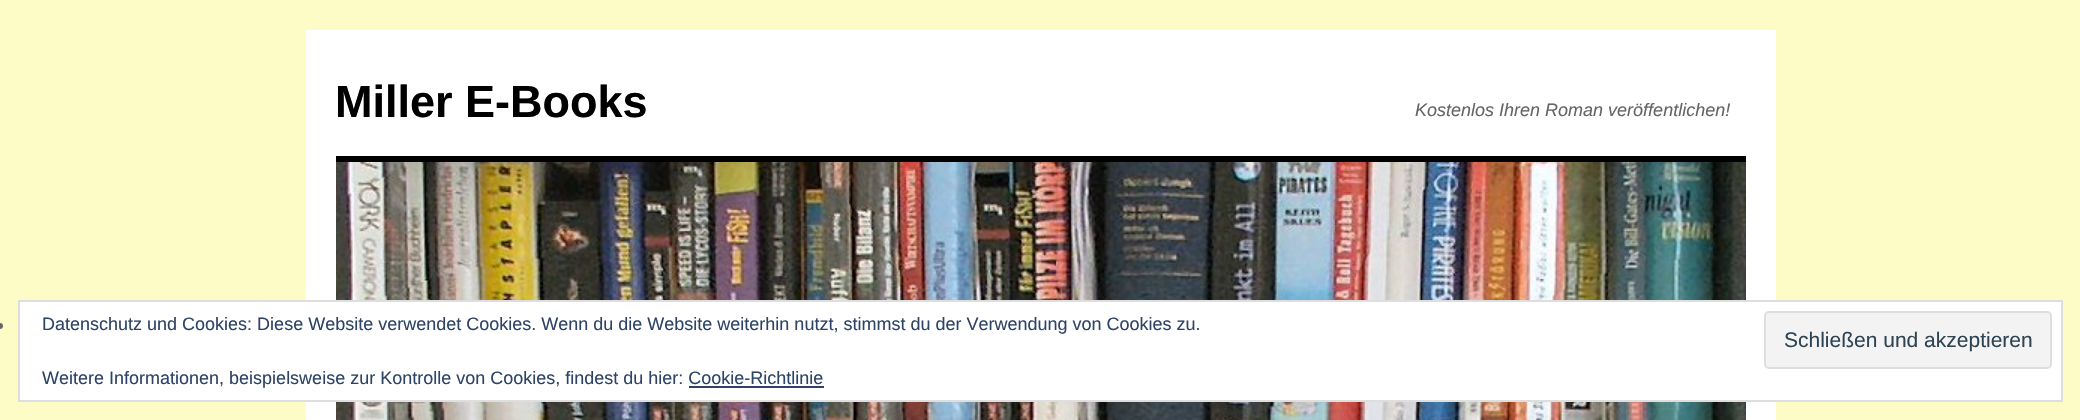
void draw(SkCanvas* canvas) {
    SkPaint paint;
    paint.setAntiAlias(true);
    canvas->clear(0xFFFEFCC6);
    paint.setColor(0xFFFFFFFF);
    canvas->drawRect(SkRect::MakeXYWH(306, 30, 1470, 390), paint);
    SkFont font1(fontMgr->matchFamilyStyle("Liberation Sans", SkFontStyle::Bold()), 45);
    font1.setSubpixel(true);
    paint.setColor(0xFF000000);
    canvas->drawString("Miller E-Books", 335, 117, font1, paint);
    SkFont font2(fontMgr->matchFamilyStyle("Liberation Sans", SkFontStyle::Italic()), 18);
    font2.setSubpixel(true);
    paint.setColor(0xFF666666);
    canvas->drawString("Kostenlos Ihren Roman veröffentlichen!", 1415, 116, font2, paint);
    paint.setColor(0xFF000000);
    canvas->drawRect(SkRect::MakeXYWH(336, 156, 1410, 6), paint);
    canvas->drawImageRect(SkImages::DeferredFromEncodedData(SkData::MakeFromFileName("img1.png")), SkRect::MakeXYWH(336, 162, 1410, 258), SkSamplingOptions());
    paint.setColor(0xFF666666);
    canvas->drawCircle(0, 326, 3, paint);
    paint.setColor(0xFFFFFFFF);
    canvas->drawRect(SkRect::MakeXYWH(19, 301, 2043, 100), paint);
    paint.setStyle(SkPaint::kStroke_Style);
    paint.setStrokeWidth(2);
    paint.setColor(0xFFDEDEDE);
    canvas->drawRect(SkRect::MakeXYWH(19, 301, 2043, 100), paint);
    SkFont font3(fontMgr->matchFamilyStyle("Liberation Sans", SkFontStyle::Normal()), 18);
    font3.setSubpixel(true);
    paint.setStyle(SkPaint::kFill_Style);
    paint.setColor(0xFF2E4467);
    canvas->drawString("Datenschutz und Cookies: Diese Website verwendet Cookies. Wenn du die Website weiterhin nutzt, stimmst du der Verwendung von Cookies zu.", 42, 330, font3, paint);
    paint.setColor(0xFFF3F3F3);
    canvas->drawRoundRect(SkRect::MakeXYWH(1765, 312, 286, 56), 4, 4, paint);
    paint.setStyle(SkPaint::kStroke_Style);
    paint.setColor(0xFFDEDEDE);
    canvas->drawRoundRect(SkRect::MakeXYWH(1765, 312, 286, 56), 4, 4, paint);
    SkFont font4(fontMgr->matchFamilyStyle("Liberation Sans", SkFontStyle::Normal()), 21);
    font4.setSubpixel(true);
    paint.setStyle(SkPaint::kFill_Style);
    paint.setColor(0xFF2E4453);
    canvas->drawString("Schließen und akzeptieren", 1784, 347, font4, paint);
    paint.setColor(0xFF2E4467);
    canvas->drawString("Weitere Informationen, beispielsweise zur Kontrolle von Cookies, findest du hier: Cookie-Richtlinie", 42, 384, font3, paint);
    canvas->drawRect(SkRect::MakeXYWH(689, 386, 135, 2), paint);
}
